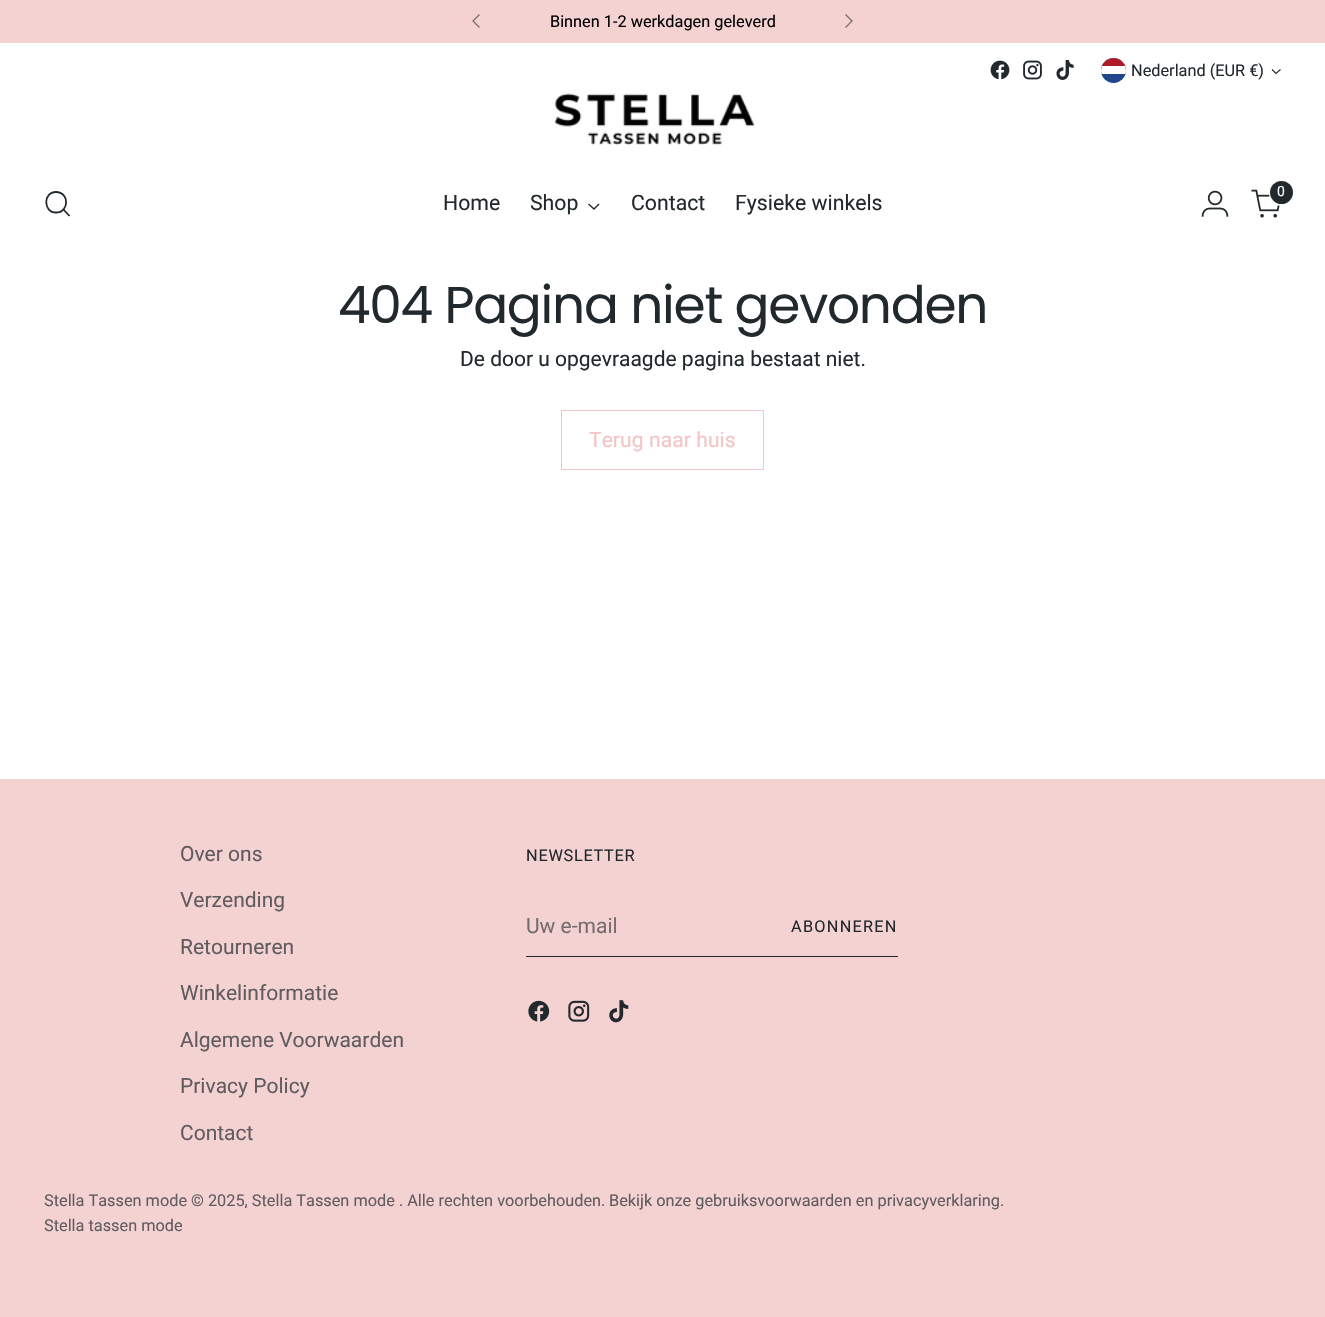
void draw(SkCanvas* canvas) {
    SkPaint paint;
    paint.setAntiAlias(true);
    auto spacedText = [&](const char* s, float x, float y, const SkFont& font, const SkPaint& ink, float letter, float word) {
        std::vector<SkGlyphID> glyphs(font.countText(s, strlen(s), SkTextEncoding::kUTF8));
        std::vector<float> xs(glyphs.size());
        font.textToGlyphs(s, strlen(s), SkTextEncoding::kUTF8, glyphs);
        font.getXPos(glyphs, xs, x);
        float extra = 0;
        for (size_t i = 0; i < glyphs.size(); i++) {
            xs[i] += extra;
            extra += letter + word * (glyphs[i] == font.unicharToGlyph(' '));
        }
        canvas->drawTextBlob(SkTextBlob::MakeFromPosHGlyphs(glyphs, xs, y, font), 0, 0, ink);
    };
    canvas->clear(0xFFFFFFFF);
    paint.setColor(0xFFF4D2D2);
    canvas->drawRect(SkRect::MakeXYWH(0, 0, 1325, 43), paint);
    paint.setStyle(SkPaint::kStroke_Style);
    paint.setStrokeWidth(1.2f);
    paint.setColor(0xFF7A6969);
    canvas->drawPath(SkPathBuilder().moveTo(479.5f, 14.5f).lineTo(473, 21).lineTo(479.5f, 27.5f).detach(), paint);
    canvas->drawPath(SkPathBuilder().moveTo(845.5f, 27.5f).lineTo(852, 21).lineTo(845.5f, 14.5f).detach(), paint);
    SkFont font1(fontMgr->matchFamilyStyle("Roboto", SkFontStyle::Normal()), 16.3f);
    font1.setSubpixel(true);
    paint.setStyle(SkPaint::kFill_Style);
    paint.setColor(0xFF000000);
    canvas->drawString("Binnen 1-2 werkdagen geleverd", 550, 27, font1, paint);
    canvas->drawImageRect(SkImages::DeferredFromEncodedData(SkData::MakeFromFileName("img1.png")), SkRect::MakeXYWH(990, 60, 20, 20), SkSamplingOptions());
    canvas->drawImageRect(SkImages::DeferredFromEncodedData(SkData::MakeFromFileName("img2.png")), SkRect::MakeXYWH(1023, 60, 19, 20), SkSamplingOptions());
    canvas->drawImageRect(SkImages::DeferredFromEncodedData(SkData::MakeFromFileName("img3.png")), SkRect::MakeXYWH(1056, 60, 18, 20), SkSamplingOptions());
    paint.setColor(0xFF21468B);
    canvas->drawCircle(1113.5f, 70.5f, 12.5f, paint);
    canvas->save();
    canvas->clipPath(SkPathBuilder().moveTo(1113.5f, 58).cubicTo(1120.5f, 58, 1126, 63.5f, 1126, 70.5f).cubicTo(1126, 77.5f, 1120.5f, 83, 1113.5f, 83).cubicTo(1106.5f, 83, 1101, 77.5f, 1101, 70.5f).cubicTo(1101, 63.5f, 1106.5f, 58, 1113.5f, 58).close().detach(), true);
    paint.setColor(0xFFFFFFFF);
    canvas->drawPath(SkPathBuilder().moveTo(1113.5f, 58).cubicTo(1120.5f, 58, 1126, 63.5f, 1126, 70.5f).lineTo(1126, 74).lineTo(1101, 74).lineTo(1101, 70.5f).cubicTo(1101, 63.5f, 1106.5f, 58, 1113.5f, 58).close().detach(), paint);
    paint.setColor(0xFFAE1C28);
    canvas->drawRect(SkRect::MakeXYWH(1101, 58, 25, 8), paint);
    canvas->restore();
    paint.setColor(0xFF22292D);
    canvas->drawString("Nederland (EUR €)", 1131, 76, font1, paint);
    paint.setStyle(SkPaint::kStroke_Style);
    paint.setStrokeWidth(1.1f);
    canvas->drawPath(SkPathBuilder().moveTo(1272, 69.5f).lineTo(1276, 73.5f).lineTo(1280.5f, 69.5f).detach(), paint);
    canvas->drawImageRect(SkImages::DeferredFromEncodedData(SkData::MakeFromFileName("img4.png")), SkRect::MakeXYWH(554, 93, 201, 52), SkSamplingOptions());
    paint.setStrokeWidth(1.8f);
    paint.setStrokeCap(SkPaint::kRound_Cap);
    canvas->drawPath(SkPathBuilder().moveTo(56, 212.5f).cubicTo(69.5f, 212.5f, 69.5f, 192, 56, 192).cubicTo(43, 192, 43, 212.5f, 56, 212.5f).close().detach(), paint);
    paint.setStrokeCap(SkPaint::kButt_Cap);
    canvas->drawPath(SkPathBuilder().moveTo(63.5f, 209.5f).lineTo(69.5f, 216).detach(), paint);
    SkFont font2(fontMgr->matchFamilyStyle("Roboto", SkFontStyle::Normal()), 21.25f);
    font2.setSubpixel(true);
    paint.setStyle(SkPaint::kFill_Style);
    canvas->drawString("Home", 443, 210, font2, paint);
    canvas->drawString("Shop", 530, 210, font2, paint);
    paint.setStyle(SkPaint::kStroke_Style);
    paint.setStrokeWidth(1.4f);
    canvas->drawPath(SkPathBuilder().moveTo(588.5f, 204).lineTo(594, 209).lineTo(599, 204).detach(), paint);
    paint.setStyle(SkPaint::kFill_Style);
    canvas->drawString("Contact", 631, 210, font2, paint);
    canvas->drawString("Fysieke winkels", 735, 210, font2, paint);
    canvas->drawImageRect(SkImages::DeferredFromEncodedData(SkData::MakeFromFileName("img5.png")), SkRect::MakeXYWH(1201, 190, 28, 27), SkSamplingOptions());
    canvas->drawImageRect(SkImages::DeferredFromEncodedData(SkData::MakeFromFileName("img6.png")), SkRect::MakeXYWH(1251, 189, 29, 29), SkSamplingOptions());
    paint.setStyle(SkPaint::kStroke_Style);
    paint.setStrokeWidth(2);
    paint.setColor(0xFFFFFFFF);
    canvas->drawCircle(1282, 193, 12, paint);
    paint.setStyle(SkPaint::kFill_Style);
    paint.setColor(0xFF22292D);
    canvas->drawCircle(1281.5f, 192.5f, 11.5f, paint);
    SkFont font3(fontMgr->matchFamilyStyle("Roboto", SkFontStyle::Normal()), 14);
    font3.setSubpixel(true);
    paint.setColor(0xFFFFFFFF);
    canvas->drawString("0", 1277, 196, font3, paint);
    SkFont font4(fontMgr->matchFamilyStyle("Poppins", SkFontStyle::Normal()), 51.75f);
    font4.setSubpixel(true);
    paint.setColor(0xFF22292D);
    spacedText("404 Pagina niet gevonden", 338, 323, font4, paint, -1.25f, 0);
    SkFont font5(fontMgr->matchFamilyStyle("Roboto", SkFontStyle::Normal()), 21);
    font5.setSubpixel(true);
    canvas->drawString("De door u opgevraagde pagina bestaat niet.", 460, 366, font5, paint);
    paint.setStyle(SkPaint::kStroke_Style);
    paint.setStrokeWidth(1);
    paint.setColor(0xFFF4C5C6);
    canvas->drawRect(SkRect::MakeXYWH(561.5f, 410.5f, 202, 59), paint);
    paint.setStyle(SkPaint::kFill_Style);
    spacedText("Terug naar huis", 589, 447, font5, paint, 0.1f, 0);
    paint.setColor(0xFFF4D2D2);
    canvas->drawRect(SkRect::MakeXYWH(0, 779, 1325, 538), paint);
    paint.setColor(0xFF615C5F);
    canvas->drawString("Over ons", 180, 861, font5, paint);
    canvas->drawString("Verzending", 180, 907, font5, paint);
    canvas->drawString("Retourneren", 180, 954, font5, paint);
    canvas->drawString("Winkelinformatie", 180, 1000, font5, paint);
    canvas->drawString("Algemene Voorwaarden", 180, 1047, font5, paint);
    canvas->drawString("Privacy Policy", 180, 1093, font5, paint);
    canvas->drawString("Contact", 180, 1140, font5, paint);
    paint.setColor(0xFF22292D);
    spacedText("NEWSLETTER", 526, 861, font1, paint, 0.75f, 0);
    canvas->drawRect(SkRect::MakeXYWH(526, 956, 372, 1), paint);
    paint.setColor(0xFF766D6F);
    canvas->drawString("Uw e-mail", 526, 933, font5, paint);
    paint.setColor(0xFF22292D);
    spacedText("ABONNEREN", 791, 932, font1, paint, 1.25f, 0);
    canvas->drawImageRect(SkImages::DeferredFromEncodedData(SkData::MakeFromFileName("img7.png")), SkRect::MakeXYWH(528, 1000, 22, 22), SkSamplingOptions());
    canvas->drawImageRect(SkImages::DeferredFromEncodedData(SkData::MakeFromFileName("img8.png")), SkRect::MakeXYWH(568, 1000, 22, 22), SkSamplingOptions());
    canvas->drawImageRect(SkImages::DeferredFromEncodedData(SkData::MakeFromFileName("img9.png")), SkRect::MakeXYWH(609, 1000, 20, 23), SkSamplingOptions());
    paint.setColor(0xFF615C5F);
    canvas->drawString("Stella Tassen mode © 2025, Stella Tassen mode . Alle rechten voorbehouden.", 44, 1206, font1, paint);
    canvas->drawString("Bekijk onze gebruiksvoorwaarden en privacyverklaring.", 609, 1206, font1, paint);
    canvas->drawString("Stella tassen mode", 44, 1231, font1, paint);
}
